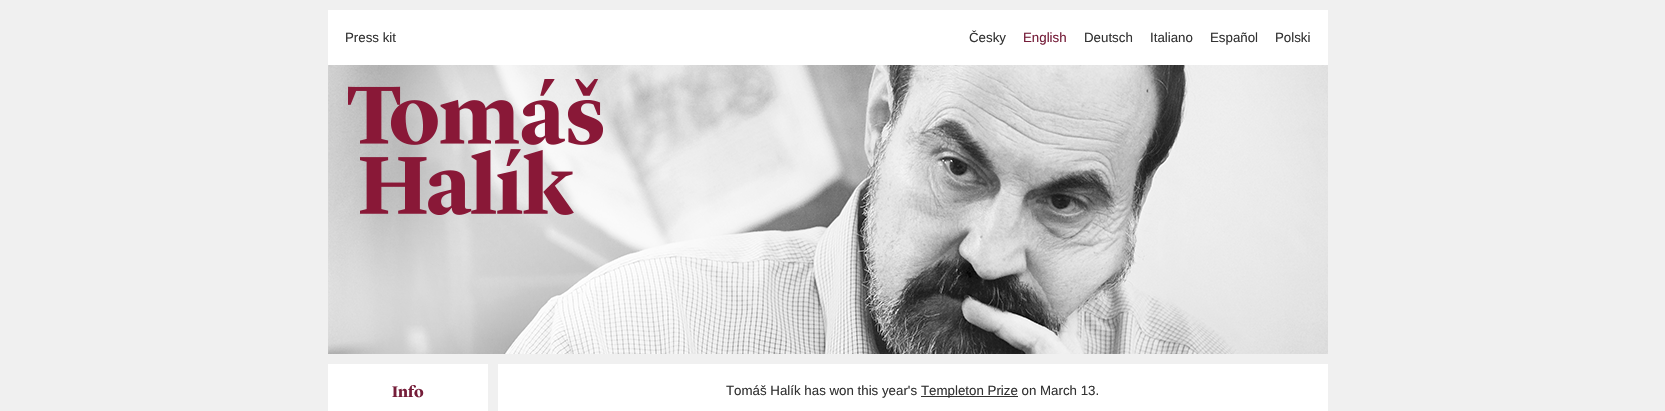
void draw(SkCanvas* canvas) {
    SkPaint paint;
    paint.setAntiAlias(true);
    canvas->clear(0xFFF0F0F0);
    canvas->drawImageRect(SkImages::DeferredFromEncodedData(SkData::MakeFromFileName("img1.png")), SkRect::MakeXYWH(328, 65, 1000, 289), SkSamplingOptions());
    paint.setColor(0xFFFFFFFF);
    canvas->drawRect(SkRect::MakeXYWH(328, 10, 1000, 55), paint);
    SkFont font1(fontMgr->matchFamilyStyle("Liberation Sans", SkFontStyle::Normal()), 13.3f);
    font1.setSubpixel(true);
    paint.setColor(0xFF333333);
    canvas->drawString("Press kit", 345, 42, font1, paint);
    canvas->drawString("Česky", 969, 42, font1, paint);
    paint.setColor(0xFF751D39);
    canvas->drawString("English", 1023, 42, font1, paint);
    paint.setColor(0xFF333333);
    canvas->drawString("Deutsch", 1084, 42, font1, paint);
    canvas->drawString("Italiano", 1150, 42, font1, paint);
    canvas->drawString("Español", 1210, 42, font1, paint);
    canvas->drawString("Polski", 1275, 42, font1, paint);
    paint.setColor(0xFFFFFFFF);
    canvas->drawRect(SkRect::MakeXYWH(328, 364, 160, 47), paint);
    SkFont font2(fontMgr->matchFamilyStyle("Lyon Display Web", SkFontStyle::Bold()), 16);
    font2.setSubpixel(true);
    paint.setColor(0xFF751D39);
    canvas->drawString("Info", 392, 397, font2, paint);
    paint.setColor(0xFFFFFFFF);
    canvas->drawRect(SkRect::MakeXYWH(498, 364, 830, 47), paint);
    paint.setColor(0xFF333333);
    canvas->drawString("Tomáš Halík has won this year's", 726, 395, font1, paint);
    canvas->drawRect(SkRect::MakeXYWH(921, 396, 97, 1), paint);
    canvas->drawString("Templeton Prize on March 13.", 921, 395, font1, paint);
}
